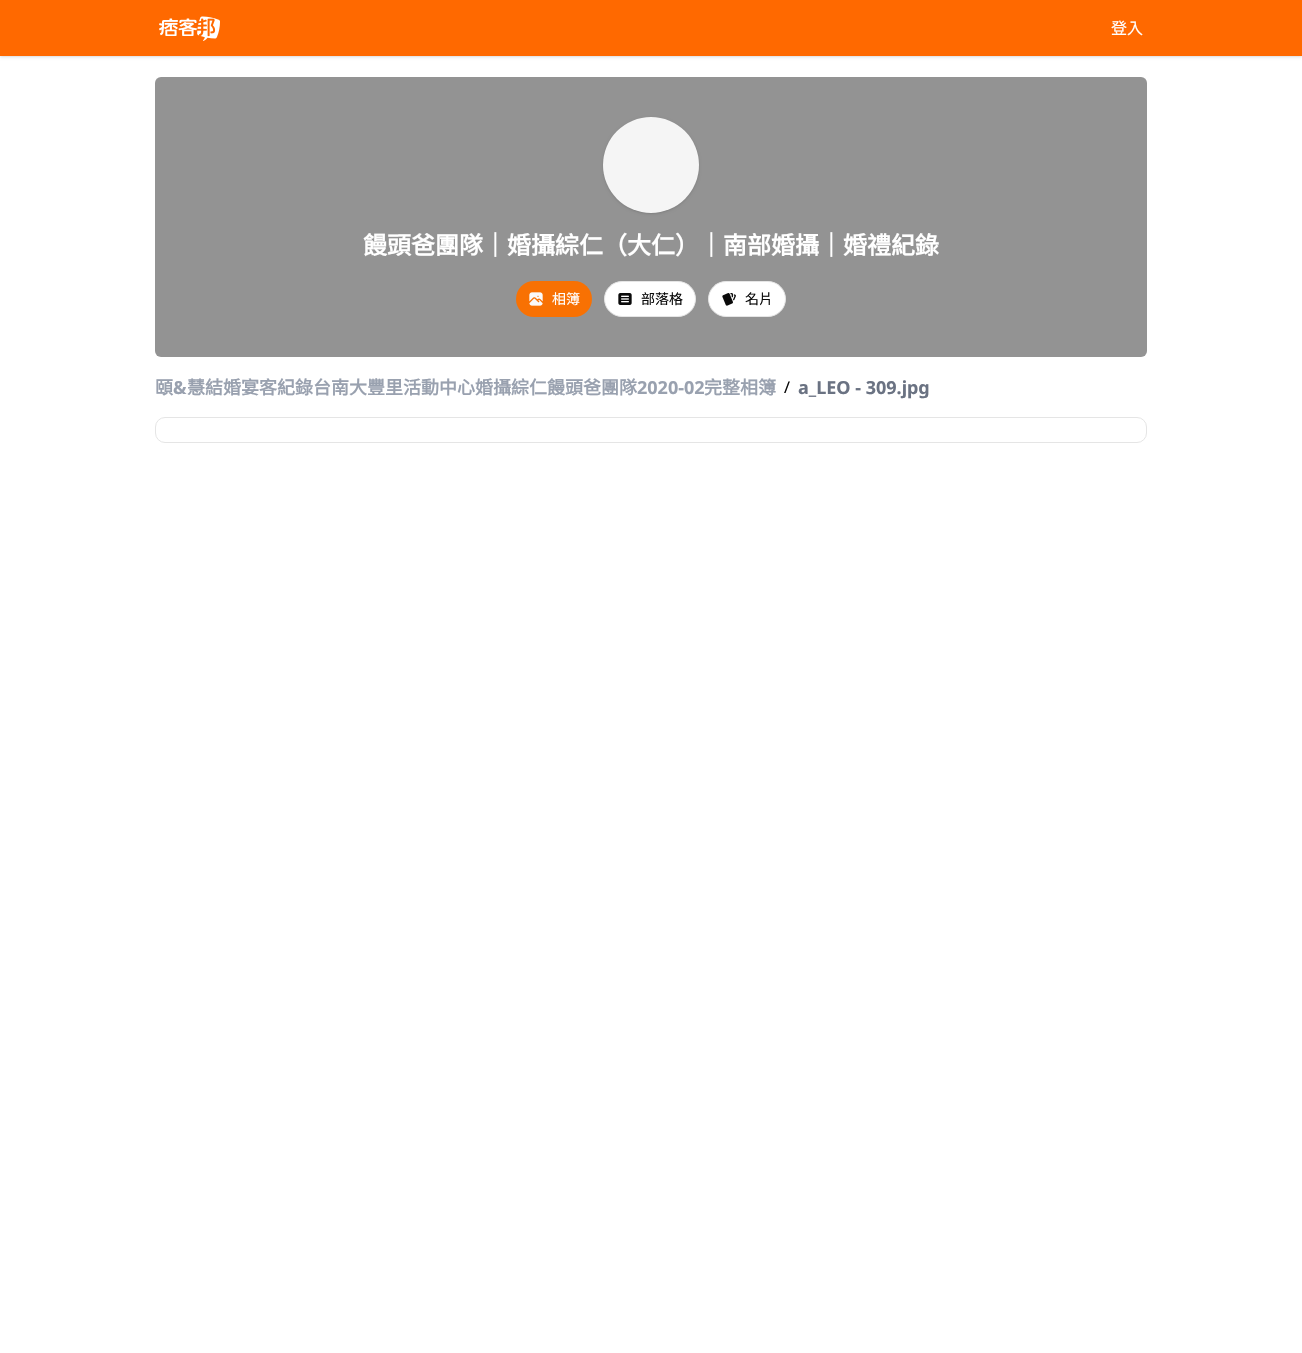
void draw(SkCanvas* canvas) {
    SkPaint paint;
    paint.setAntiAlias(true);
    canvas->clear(0xFFFFFFFF);
    paint.setColor(0x1A000000);
    paint.setMaskFilter(SkMaskFilter::MakeBlur(kNormal_SkBlurStyle, 1));
    canvas->drawRect(SkRect::MakeXYWH(1, 2, 1300, 54), paint);
    paint.setMaskFilter(nullptr);
    paint.setMaskFilter(SkMaskFilter::MakeBlur(kNormal_SkBlurStyle, 1.5f));
    canvas->drawRect(SkRect::MakeXYWH(0, 1, 1302, 56), paint);
    paint.setMaskFilter(nullptr);
    paint.setColor(0xFFFF6900);
    canvas->drawRect(SkRect::MakeXYWH(0, 0, 1302, 56), paint);
    canvas->drawImageRect(SkImages::DeferredFromEncodedData(SkData::MakeFromFileName("img1.png")), SkRect::MakeXYWH(159, 16, 61, 25), SkSamplingOptions());
    SkFont font1(fontMgr->matchFamilyStyle("Noto Sans CJK TC", SkFontStyle::Normal()), 16);
    font1.setSubpixel(true);
    paint.setColor(0xFFFFFFFF);
    canvas->drawString("登入", 1111, 34, font1, paint);
    paint.setColor(0xFF939393);
    canvas->drawRoundRect(SkRect::MakeXYWH(155, 77, 992, 280), 6, 6, paint);
    paint.setColor(0x1A000000);
    paint.setMaskFilter(SkMaskFilter::MakeBlur(kNormal_SkBlurStyle, 1));
    canvas->drawRoundRect(SkRect::MakeXYWH(604, 119, 94, 94), 47, 47, paint);
    paint.setMaskFilter(nullptr);
    paint.setMaskFilter(SkMaskFilter::MakeBlur(kNormal_SkBlurStyle, 1.5f));
    canvas->drawRoundRect(SkRect::MakeXYWH(603, 118, 96, 96), 48, 48, paint);
    paint.setMaskFilter(nullptr);
    paint.setColor(0xFFF5F5F5);
    canvas->drawCircle(651, 165, 48, paint);
    SkFont font2(fontMgr->matchFamilyStyle("Noto Sans CJK TC", SkFontStyle::Bold()), 24);
    font2.setSubpixel(true);
    paint.setColor(0xFFFFFFFF);
    canvas->drawString("饅頭爸團隊｜婚攝綜仁（大仁）｜南部婚攝｜婚禮紀錄", 363, 254, font2, paint);
    paint.setColor(0xFFF87103);
    canvas->drawRoundRect(SkRect::MakeXYWH(516, 281, 76, 36), 18, 18, paint);
    canvas->drawImageRect(SkImages::DeferredFromEncodedData(SkData::MakeFromFileName("img2.png")), SkRect::MakeXYWH(529, 292, 14, 14), SkSamplingOptions());
    SkFont font3(fontMgr->matchFamilyStyle("Noto Sans CJK TC", SkFontStyle::Normal()), 14);
    font3.setSubpixel(true);
    paint.setColor(0xFFFFFFFF);
    canvas->drawString("相簿", 552, 304, font3, paint);
    canvas->drawRoundRect(SkRect::MakeXYWH(604.5f, 281.5f, 91, 35), 17.5f, 17.5f, paint);
    paint.setStyle(SkPaint::kStroke_Style);
    paint.setStrokeWidth(1);
    paint.setColor(0xFFE5E5E5);
    canvas->drawRoundRect(SkRect::MakeXYWH(604.5f, 281.5f, 91, 35), 17.5f, 17.5f, paint);
    canvas->drawImageRect(SkImages::DeferredFromEncodedData(SkData::MakeFromFileName("img3.png")), SkRect::MakeXYWH(618, 293, 14, 12), SkSamplingOptions());
    paint.setStyle(SkPaint::kFill_Style);
    paint.setColor(0xFF0A0A0A);
    canvas->drawString("部落格", 641, 304, font3, paint);
    paint.setColor(0xFFFFFFFF);
    canvas->drawRoundRect(SkRect::MakeXYWH(708.5f, 281.5f, 77, 35), 17.5f, 17.5f, paint);
    paint.setStyle(SkPaint::kStroke_Style);
    paint.setColor(0xFFE5E5E5);
    canvas->drawRoundRect(SkRect::MakeXYWH(708.5f, 281.5f, 77, 35), 17.5f, 17.5f, paint);
    canvas->drawImageRect(SkImages::DeferredFromEncodedData(SkData::MakeFromFileName("img4.png")), SkRect::MakeXYWH(722, 293, 14, 13), SkSamplingOptions());
    paint.setStyle(SkPaint::kFill_Style);
    paint.setColor(0xFF0A0A0A);
    canvas->drawString("名片", 745, 304, font3, paint);
    SkFont font4(fontMgr->matchFamilyStyle("Noto Sans CJK TC", SkFontStyle::Bold()), 18);
    font4.setSubpixel(true);
    paint.setColor(0xFF99A1AF);
    canvas->drawString("頤", 155, 394, font4, paint);
    SkFont font5(fontMgr->matchFamilyStyle("Noto Sans", SkFontStyle::Bold()), 18);
    font5.setSubpixel(true);
    canvas->drawString("&", 173, 394, font5, paint);
    canvas->drawString("慧結婚宴客紀錄台南大豐里活動中心婚攝綜仁饅頭爸團隊", 187, 394, font4, paint);
    canvas->drawString("2020-02", 637, 394, font5, paint);
    canvas->drawString("完整相簿", 704, 394, font4, paint);
    SkFont font6(fontMgr->matchFamilyStyle("Noto Sans", SkFontStyle::Normal()), 16);
    font6.setSubpixel(true);
    paint.setColor(0xFF0A0A0A);
    canvas->drawString("/", 784, 393, font6, paint);
    paint.setColor(0xFF6A7282);
    canvas->drawString("a_LEO - 309.jpg", 798, 394, font5, paint);
    paint.setStyle(SkPaint::kStroke_Style);
    paint.setColor(0xFFE5E5E5);
    canvas->drawRoundRect(SkRect::MakeXYWH(155.5f, 417.5f, 991, 25), 9.5f, 9.5f, paint);
}
